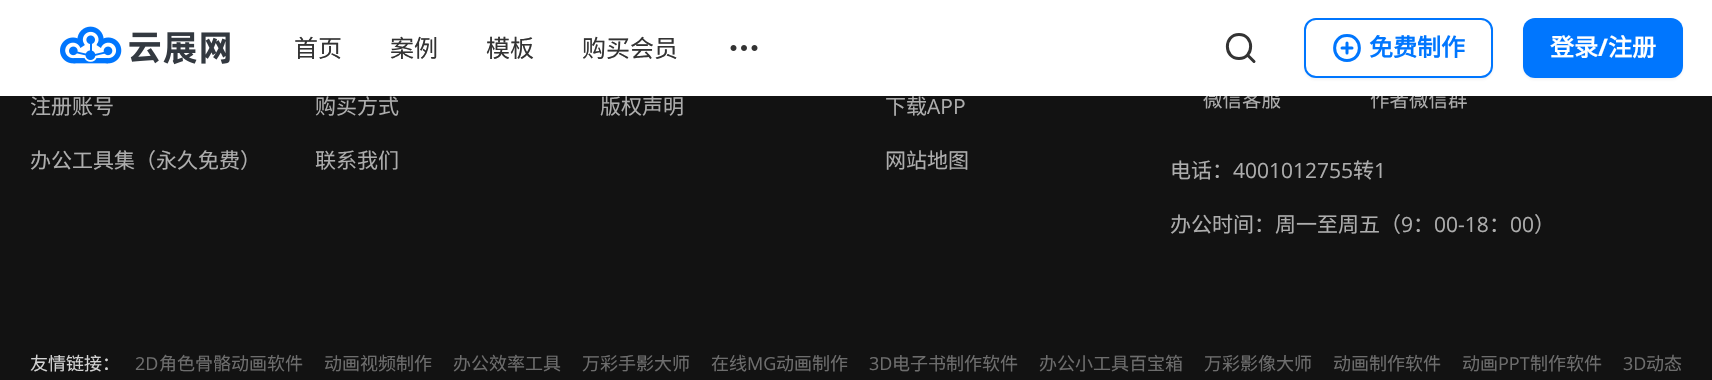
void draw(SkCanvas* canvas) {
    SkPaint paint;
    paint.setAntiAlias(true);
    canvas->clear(0xFF121212);
    SkFont font1(fontMgr->matchFamilyStyle("Noto Sans CJK SC", SkFontStyle::Normal()), 19.5f);
    font1.setSubpixel(true);
    paint.setColor(0xFFADADAD);
    canvas->drawString("微信客服", 1203, 107, font1, paint);
    canvas->drawString("作者微信群", 1370, 107, font1, paint);
    paint.setColor(0xFFFFFFFF);
    canvas->drawRect(SkRect::MakeXYWH(0, 0, 1712, 96), paint);
    canvas->drawImageRect(SkImages::DeferredFromEncodedData(SkData::MakeFromFileName("img1.png")), SkRect::MakeXYWH(60, 26, 170, 39), SkSamplingOptions());
    SkFont font2(fontMgr->matchFamilyStyle("Noto Sans CJK SC", SkFontStyle::Normal()), 24);
    font2.setSubpixel(true);
    paint.setColor(0xFF333333);
    canvas->drawString("首页", 294, 57, font2, paint);
    canvas->drawString("案例", 390, 57, font2, paint);
    canvas->drawString("模板", 486, 57, font2, paint);
    canvas->drawString("购买会员", 582, 57, font2, paint);
    canvas->drawImageRect(SkImages::DeferredFromEncodedData(SkData::MakeFromFileName("img2.png")), SkRect::MakeXYWH(730, 45, 28, 6), SkSamplingOptions());
    paint.setStyle(SkPaint::kStroke_Style);
    paint.setStrokeWidth(3);
    paint.setStrokeCap(SkPaint::kRound_Cap);
    paint.setStrokeJoin(SkPaint::kRound_Join);
    canvas->drawPath(SkPathBuilder().moveTo(1239, 58.5f).cubicTo(1254.5f, 58.5f, 1254.5f, 34.5f, 1239, 34.5f).cubicTo(1223.5f, 34.5f, 1223.5f, 58.5f, 1239, 58.5f).close().moveTo(1254, 61.5f).lineTo(1247.5f, 55).detach(), paint);
    paint.setStyle(SkPaint::kFill_Style);
    paint.setColor(0x0D101828);
    paint.setMaskFilter(SkMaskFilter::MakeBlur(kNormal_SkBlurStyle, 1.5f));
    canvas->drawRoundRect(SkRect::MakeXYWH(1304, 20, 189, 60), 12, 12, paint);
    paint.setMaskFilter(nullptr);
    paint.setColor(0xFFFFFFFF);
    canvas->drawRoundRect(SkRect::MakeXYWH(1305, 19, 187, 58), 11, 11, paint);
    paint.setStyle(SkPaint::kStroke_Style);
    paint.setStrokeWidth(2);
    paint.setStrokeCap(SkPaint::kButt_Cap);
    paint.setStrokeJoin(SkPaint::kMiter_Join);
    paint.setColor(0xFF0076FE);
    canvas->drawRoundRect(SkRect::MakeXYWH(1305, 19, 187, 58), 11, 11, paint);
    paint.setStrokeWidth(3);
    paint.setStrokeCap(SkPaint::kRound_Cap);
    paint.setStrokeJoin(SkPaint::kRound_Join);
    canvas->drawPath(SkPathBuilder().moveTo(1347, 60.5f).cubicTo(1363.5f, 60.5f, 1363.5f, 35.5f, 1347, 35.5f).cubicTo(1330.5f, 35.5f, 1330.5f, 60.5f, 1347, 60.5f).close().moveTo(1347, 43).lineTo(1347, 53).moveTo(1342, 48).lineTo(1352, 48).detach(), paint);
    SkFont font3(fontMgr->matchFamilyStyle("Noto Sans CJK SC", SkFontStyle::Bold()), 24);
    font3.setSubpixel(true);
    paint.setStyle(SkPaint::kFill_Style);
    canvas->drawString("免费制作", 1369, 56, font3, paint);
    paint.setColor(0x0D101828);
    paint.setMaskFilter(SkMaskFilter::MakeBlur(kNormal_SkBlurStyle, 1.5f));
    canvas->drawRoundRect(SkRect::MakeXYWH(1523, 20, 160, 60), 12, 12, paint);
    paint.setMaskFilter(nullptr);
    paint.setColor(0xFF0076FE);
    canvas->drawRoundRect(SkRect::MakeXYWH(1523, 18, 160, 60), 12, 12, paint);
    paint.setColor(0xFFFFFFFF);
    canvas->drawString("登录", 1550, 56, font3, paint);
    SkFont font4(fontMgr->matchFamilyStyle("Open Sans", SkFontStyle::Bold()), 24);
    font4.setSubpixel(true);
    canvas->drawString("/", 1598, 56, font4, paint);
    canvas->drawString("注册", 1608, 56, font3, paint);
    SkFont font5(fontMgr->matchFamilyStyle("Noto Sans CJK SC", SkFontStyle::Normal()), 21);
    font5.setSubpixel(true);
    paint.setColor(0xFFADADAD);
    canvas->drawString("注册账号", 30, 114, font5, paint);
    canvas->drawString("办公工具集（永久免费）", 30, 168, font5, paint);
    canvas->drawString("购买方式", 315, 114, font5, paint);
    canvas->drawString("联系我们", 315, 168, font5, paint);
    canvas->drawString("版权声明", 600, 114, font5, paint);
    canvas->drawString("下载", 885, 114, font5, paint);
    SkFont font6(fontMgr->matchFamilyStyle("Open Sans", SkFontStyle::Normal()), 21);
    font6.setSubpixel(true);
    canvas->drawString("APP", 927, 114, font6, paint);
    canvas->drawString("网站地图", 885, 168, font5, paint);
    canvas->drawString("电话：", 1170, 178, font5, paint);
    canvas->drawString("4001012755", 1233, 178, font6, paint);
    canvas->drawString("转", 1353, 178, font5, paint);
    canvas->drawString("1", 1374, 178, font6, paint);
    canvas->drawString("办公时间：周一至周五（", 1170, 232, font5, paint);
    canvas->drawString("9", 1401, 232, font6, paint);
    canvas->drawString("：", 1413, 232, font5, paint);
    canvas->drawString("00-18", 1434, 232, font6, paint);
    canvas->drawString("：", 1489, 232, font5, paint);
    canvas->drawString("00", 1510, 232, font6, paint);
    canvas->drawString("）", 1534, 232, font5, paint);
    SkFont font7(fontMgr->matchFamilyStyle("Noto Sans CJK SC", SkFontStyle::Normal()), 18);
    font7.setSubpixel(true);
    paint.setColor(0xFFD3D3D3);
    canvas->drawString("友情链接：", 30, 370, font7, paint);
    SkFont font8(fontMgr->matchFamilyStyle("Open Sans", SkFontStyle::Normal()), 18);
    font8.setSubpixel(true);
    paint.setColor(0xFF6D6D6D);
    canvas->drawString("2D", 135, 370, font8, paint);
    canvas->drawString("角色骨骼动画软件", 159, 370, font7, paint);
    canvas->drawString("动画视频制作", 324, 370, font7, paint);
    canvas->drawString("办公效率工具", 453, 370, font7, paint);
    canvas->drawString("万彩手影大师", 582, 370, font7, paint);
    canvas->drawString("在线", 711, 370, font7, paint);
    canvas->drawString("MG", 747, 370, font8, paint);
    canvas->drawString("动画制作", 776, 370, font7, paint);
    canvas->drawString("3D", 869, 370, font8, paint);
    canvas->drawString("电子书制作软件", 892, 370, font7, paint);
    canvas->drawString("办公小工具百宝箱", 1039, 370, font7, paint);
    canvas->drawString("万彩影像大师", 1204, 370, font7, paint);
    canvas->drawString("动画制作软件", 1333, 370, font7, paint);
    canvas->drawString("动画", 1462, 370, font7, paint);
    canvas->drawString("PPT", 1498, 370, font8, paint);
    canvas->drawString("制作软件", 1530, 370, font7, paint);
    canvas->drawString("3D", 1623, 370, font8, paint);
    canvas->drawString("动态", 1646, 370, font7, paint);
}
